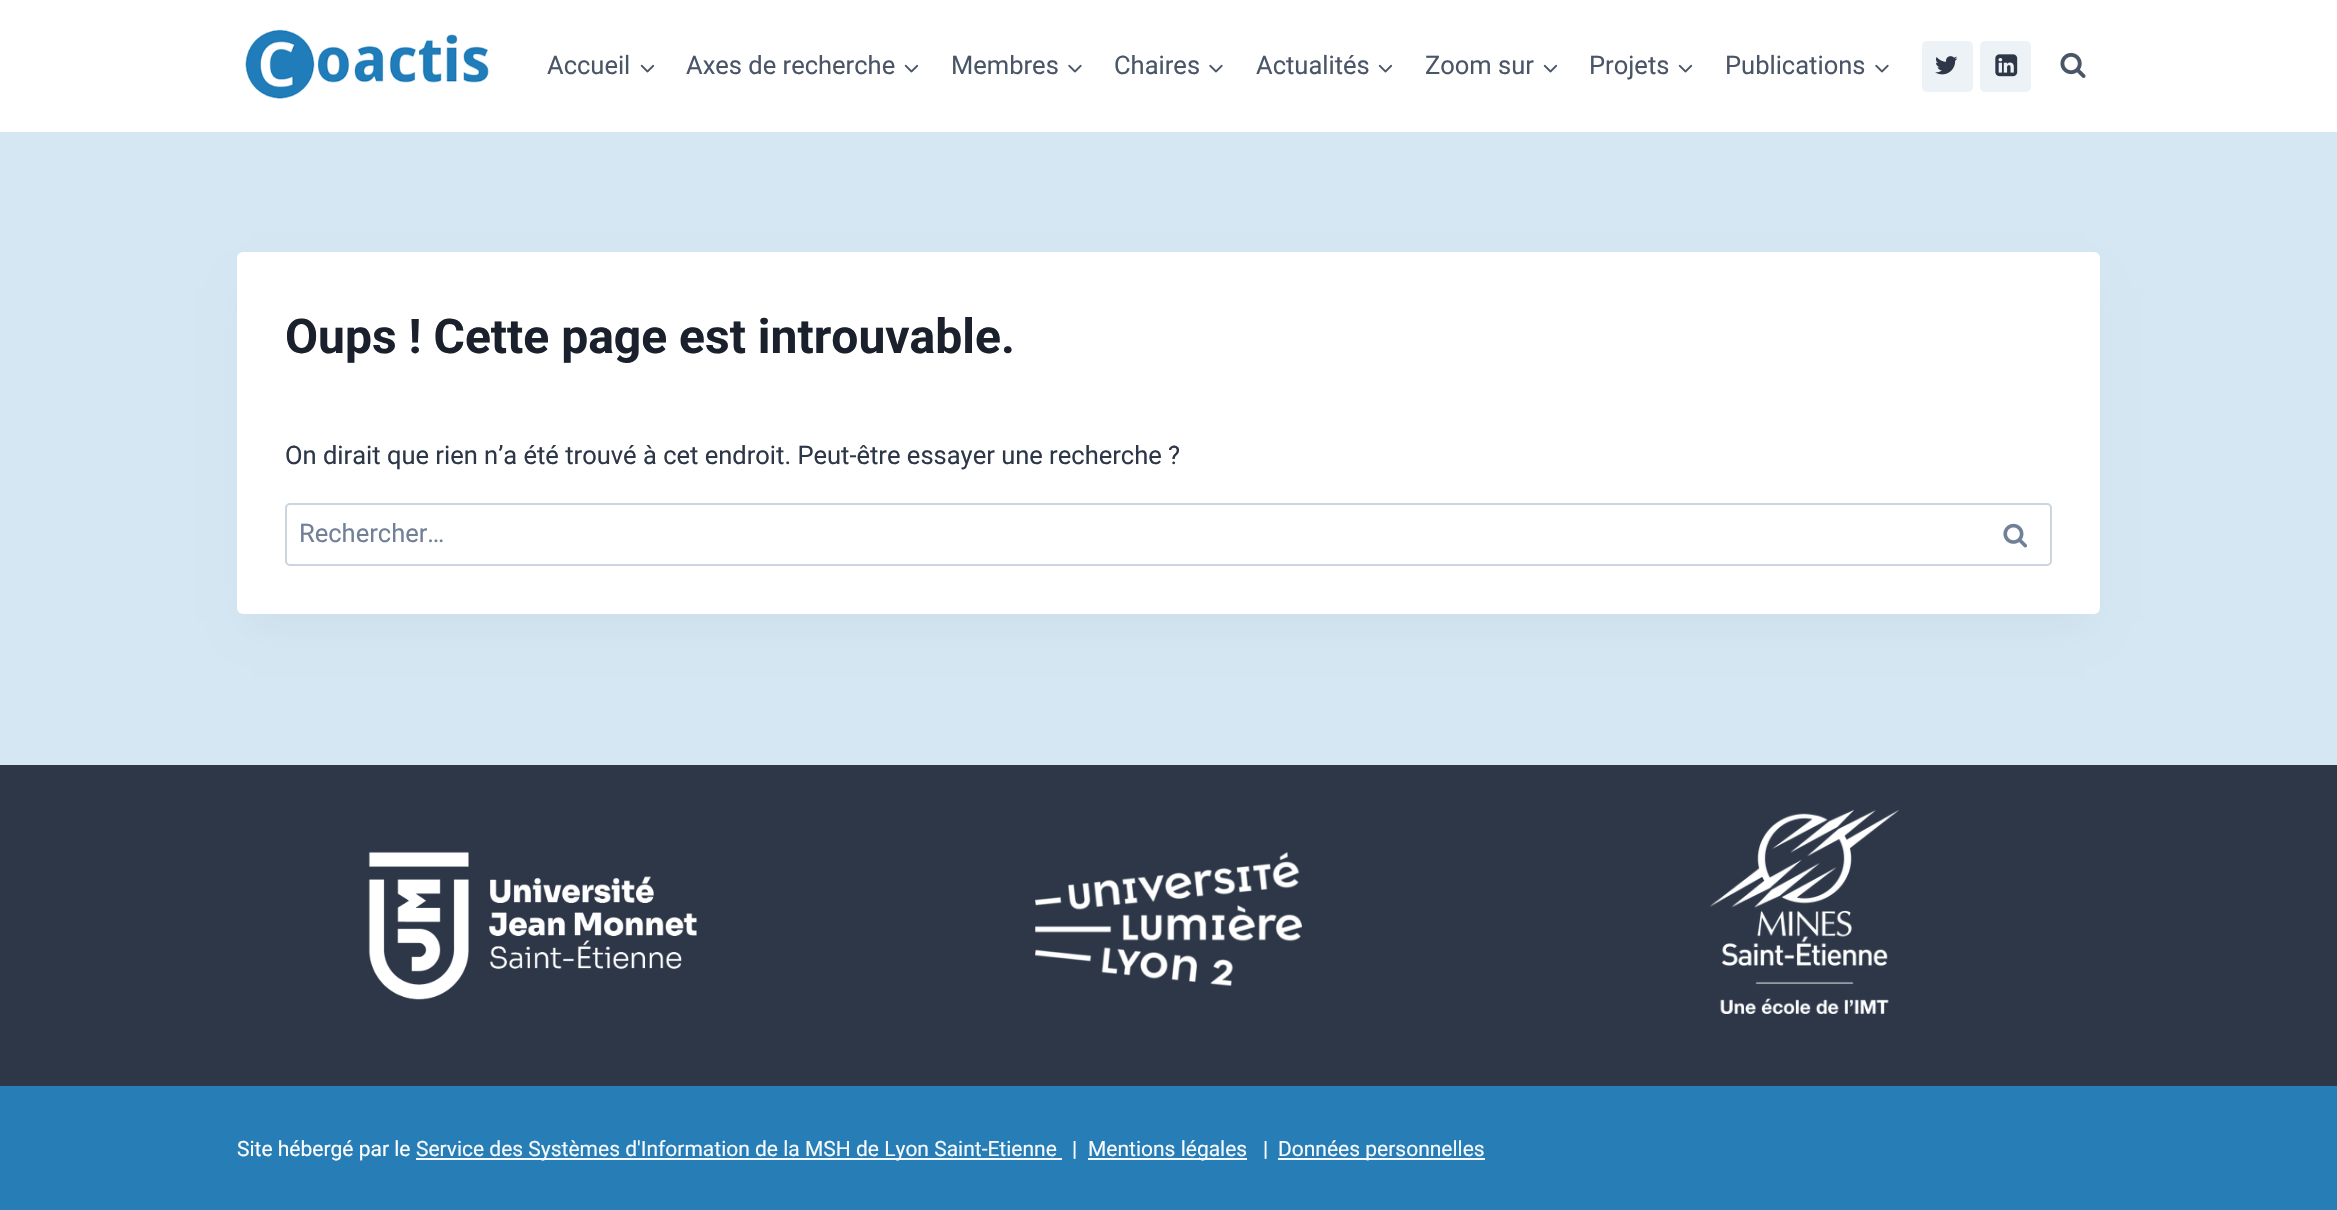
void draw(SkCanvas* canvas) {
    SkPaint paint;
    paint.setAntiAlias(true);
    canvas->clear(0xFFD5E7F3);
    paint.setColor(0xFFFFFFFF);
    canvas->drawRect(SkRect::MakeXYWH(0, 0, 2337, 132), paint);
    canvas->drawImageRect(SkImages::DeferredFromEncodedData(SkData::MakeFromFileName("img1.png")), SkRect::MakeXYWH(245, 29, 244, 71), SkSamplingOptions());
    SkFont font1(fontMgr->matchFamilyStyle("Roboto", SkFontStyle::Normal()), 25.5f);
    font1.setSubpixel(true);
    paint.setColor(0xFF4A5568);
    canvas->drawString("Accueil", 547, 74, font1, paint);
    canvas->drawImageRect(SkImages::DeferredFromEncodedData(SkData::MakeFromFileName("img2.png")), SkRect::MakeXYWH(640, 64, 15, 9), SkSamplingOptions());
    canvas->drawString("Axes de recherche", 686, 74, font1, paint);
    canvas->drawImageRect(SkImages::DeferredFromEncodedData(SkData::MakeFromFileName("img2.png")), SkRect::MakeXYWH(904, 64, 15, 9), SkSamplingOptions());
    canvas->drawString("Membres", 951, 74, font1, paint);
    canvas->drawImageRect(SkImages::DeferredFromEncodedData(SkData::MakeFromFileName("img3.png")), SkRect::MakeXYWH(1068, 64, 14, 9), SkSamplingOptions());
    canvas->drawString("Chaires", 1114, 74, font1, paint);
    canvas->drawImageRect(SkImages::DeferredFromEncodedData(SkData::MakeFromFileName("img3.png")), SkRect::MakeXYWH(1209, 64, 14, 9), SkSamplingOptions());
    canvas->drawString("Actualités", 1256, 74, font1, paint);
    canvas->drawImageRect(SkImages::DeferredFromEncodedData(SkData::MakeFromFileName("img2.png")), SkRect::MakeXYWH(1378, 64, 15, 9), SkSamplingOptions());
    canvas->drawString("Zoom sur", 1425, 74, font1, paint);
    canvas->drawImageRect(SkImages::DeferredFromEncodedData(SkData::MakeFromFileName("img2.png")), SkRect::MakeXYWH(1543, 64, 15, 9), SkSamplingOptions());
    canvas->drawString("Projets", 1589, 74, font1, paint);
    canvas->drawImageRect(SkImages::DeferredFromEncodedData(SkData::MakeFromFileName("img2.png")), SkRect::MakeXYWH(1678, 64, 15, 9), SkSamplingOptions());
    canvas->drawString("Publications", 1725, 74, font1, paint);
    canvas->drawImageRect(SkImages::DeferredFromEncodedData(SkData::MakeFromFileName("img3.png")), SkRect::MakeXYWH(1875, 64, 14, 9), SkSamplingOptions());
    paint.setColor(0xFFEDF2F7);
    canvas->drawRoundRect(SkRect::MakeXYWH(1922, 41, 51, 51), 5, 5, paint);
    canvas->drawImageRect(SkImages::DeferredFromEncodedData(SkData::MakeFromFileName("img4.png")), SkRect::MakeXYWH(1935, 56, 23, 19), SkSamplingOptions());
    canvas->drawRoundRect(SkRect::MakeXYWH(1980, 41, 51, 51), 5, 5, paint);
    canvas->drawImageRect(SkImages::DeferredFromEncodedData(SkData::MakeFromFileName("img5.png")), SkRect::MakeXYWH(1995, 54, 23, 23), SkSamplingOptions());
    canvas->drawImageRect(SkImages::DeferredFromEncodedData(SkData::MakeFromFileName("img6.png")), SkRect::MakeXYWH(2060, 52, 26, 26), SkSamplingOptions());
    paint.setColor(0x0D000000);
    paint.setMaskFilter(SkMaskFilter::MakeBlur(kNormal_SkBlurStyle, 19));
    canvas->drawRect(SkRect::MakeXYWH(252, 290, 1833, 331), paint);
    paint.setMaskFilter(nullptr);
    paint.setColor(0xFFFFFFFF);
    canvas->drawRoundRect(SkRect::MakeXYWH(237, 252, 1863, 362), 6, 6, paint);
    SkFont font2(fontMgr->matchFamilyStyle("Roboto", SkFontStyle::Bold()), 48);
    font2.setSubpixel(true);
    paint.setColor(0xFF1A202C);
    canvas->drawString("Oups ! Cette page est introuvable.", 285, 353, font2, paint);
    paint.setColor(0xFF2D3748);
    canvas->drawString("On dirait que rien n’a été trouvé à cet endroit. Peut-être essayer une recherche ?", 285, 464, font1, paint);
    paint.setStyle(SkPaint::kStroke_Style);
    paint.setStrokeWidth(2);
    paint.setColor(0xFFCBD5E0);
    canvas->drawRoundRect(SkRect::MakeXYWH(286, 504, 1765, 61), 4, 4, paint);
    paint.setStyle(SkPaint::kFill_Style);
    paint.setColor(0xFF718096);
    canvas->drawString("Rechercher…", 299, 542, font1, paint);
    canvas->drawImageRect(SkImages::DeferredFromEncodedData(SkData::MakeFromFileName("img7.png")), SkRect::MakeXYWH(2003, 523, 25, 25), SkSamplingOptions());
    paint.setColor(0xFF2D3748);
    canvas->drawRect(SkRect::MakeXYWH(0, 765, 2337, 321), paint);
    canvas->drawImageRect(SkImages::DeferredFromEncodedData(SkData::MakeFromFileName("img8.png")), SkRect::MakeXYWH(368, 851, 329, 149), SkSamplingOptions());
    canvas->drawImageRect(SkImages::DeferredFromEncodedData(SkData::MakeFromFileName("img9.png")), SkRect::MakeXYWH(1035, 852, 267, 134), SkSamplingOptions());
    canvas->drawImageRect(SkImages::DeferredFromEncodedData(SkData::MakeFromFileName("img10.png")), SkRect::MakeXYWH(1710, 810, 189, 204), SkSamplingOptions());
    paint.setColor(0xFF277EB7);
    canvas->drawRect(SkRect::MakeXYWH(0, 1086, 2337, 124), paint);
    SkFont font3(fontMgr->matchFamilyStyle("Roboto", SkFontStyle::Normal()), 21);
    font3.setSubpixel(true);
    paint.setColor(0xFFFFFFFF);
    canvas->drawString("Site hébergé par le", 237, 1156, font3, paint);
    paint.setColor(0xFFF7FAFC);
    canvas->drawRect(SkRect::MakeXYWH(416, 1158, 646, 2), paint);
    canvas->drawString("Service des Systèmes d'Information de la MSH de Lyon Saint-Etienne", 416, 1156, font3, paint);
    paint.setColor(0xFFFFFFFF);
    canvas->drawString("|", 1072, 1156, font3, paint);
    paint.setColor(0xFFF7FAFC);
    canvas->drawRect(SkRect::MakeXYWH(1088, 1158, 159, 2), paint);
    canvas->drawString("Mentions légales", 1088, 1156, font3, paint);
    paint.setColor(0xFFFFFFFF);
    canvas->drawString("|", 1263, 1156, font3, paint);
    paint.setColor(0xFFF7FAFC);
    canvas->drawRect(SkRect::MakeXYWH(1278, 1158, 207, 2), paint);
    canvas->drawString("Données personnelles", 1278, 1156, font3, paint);
}
